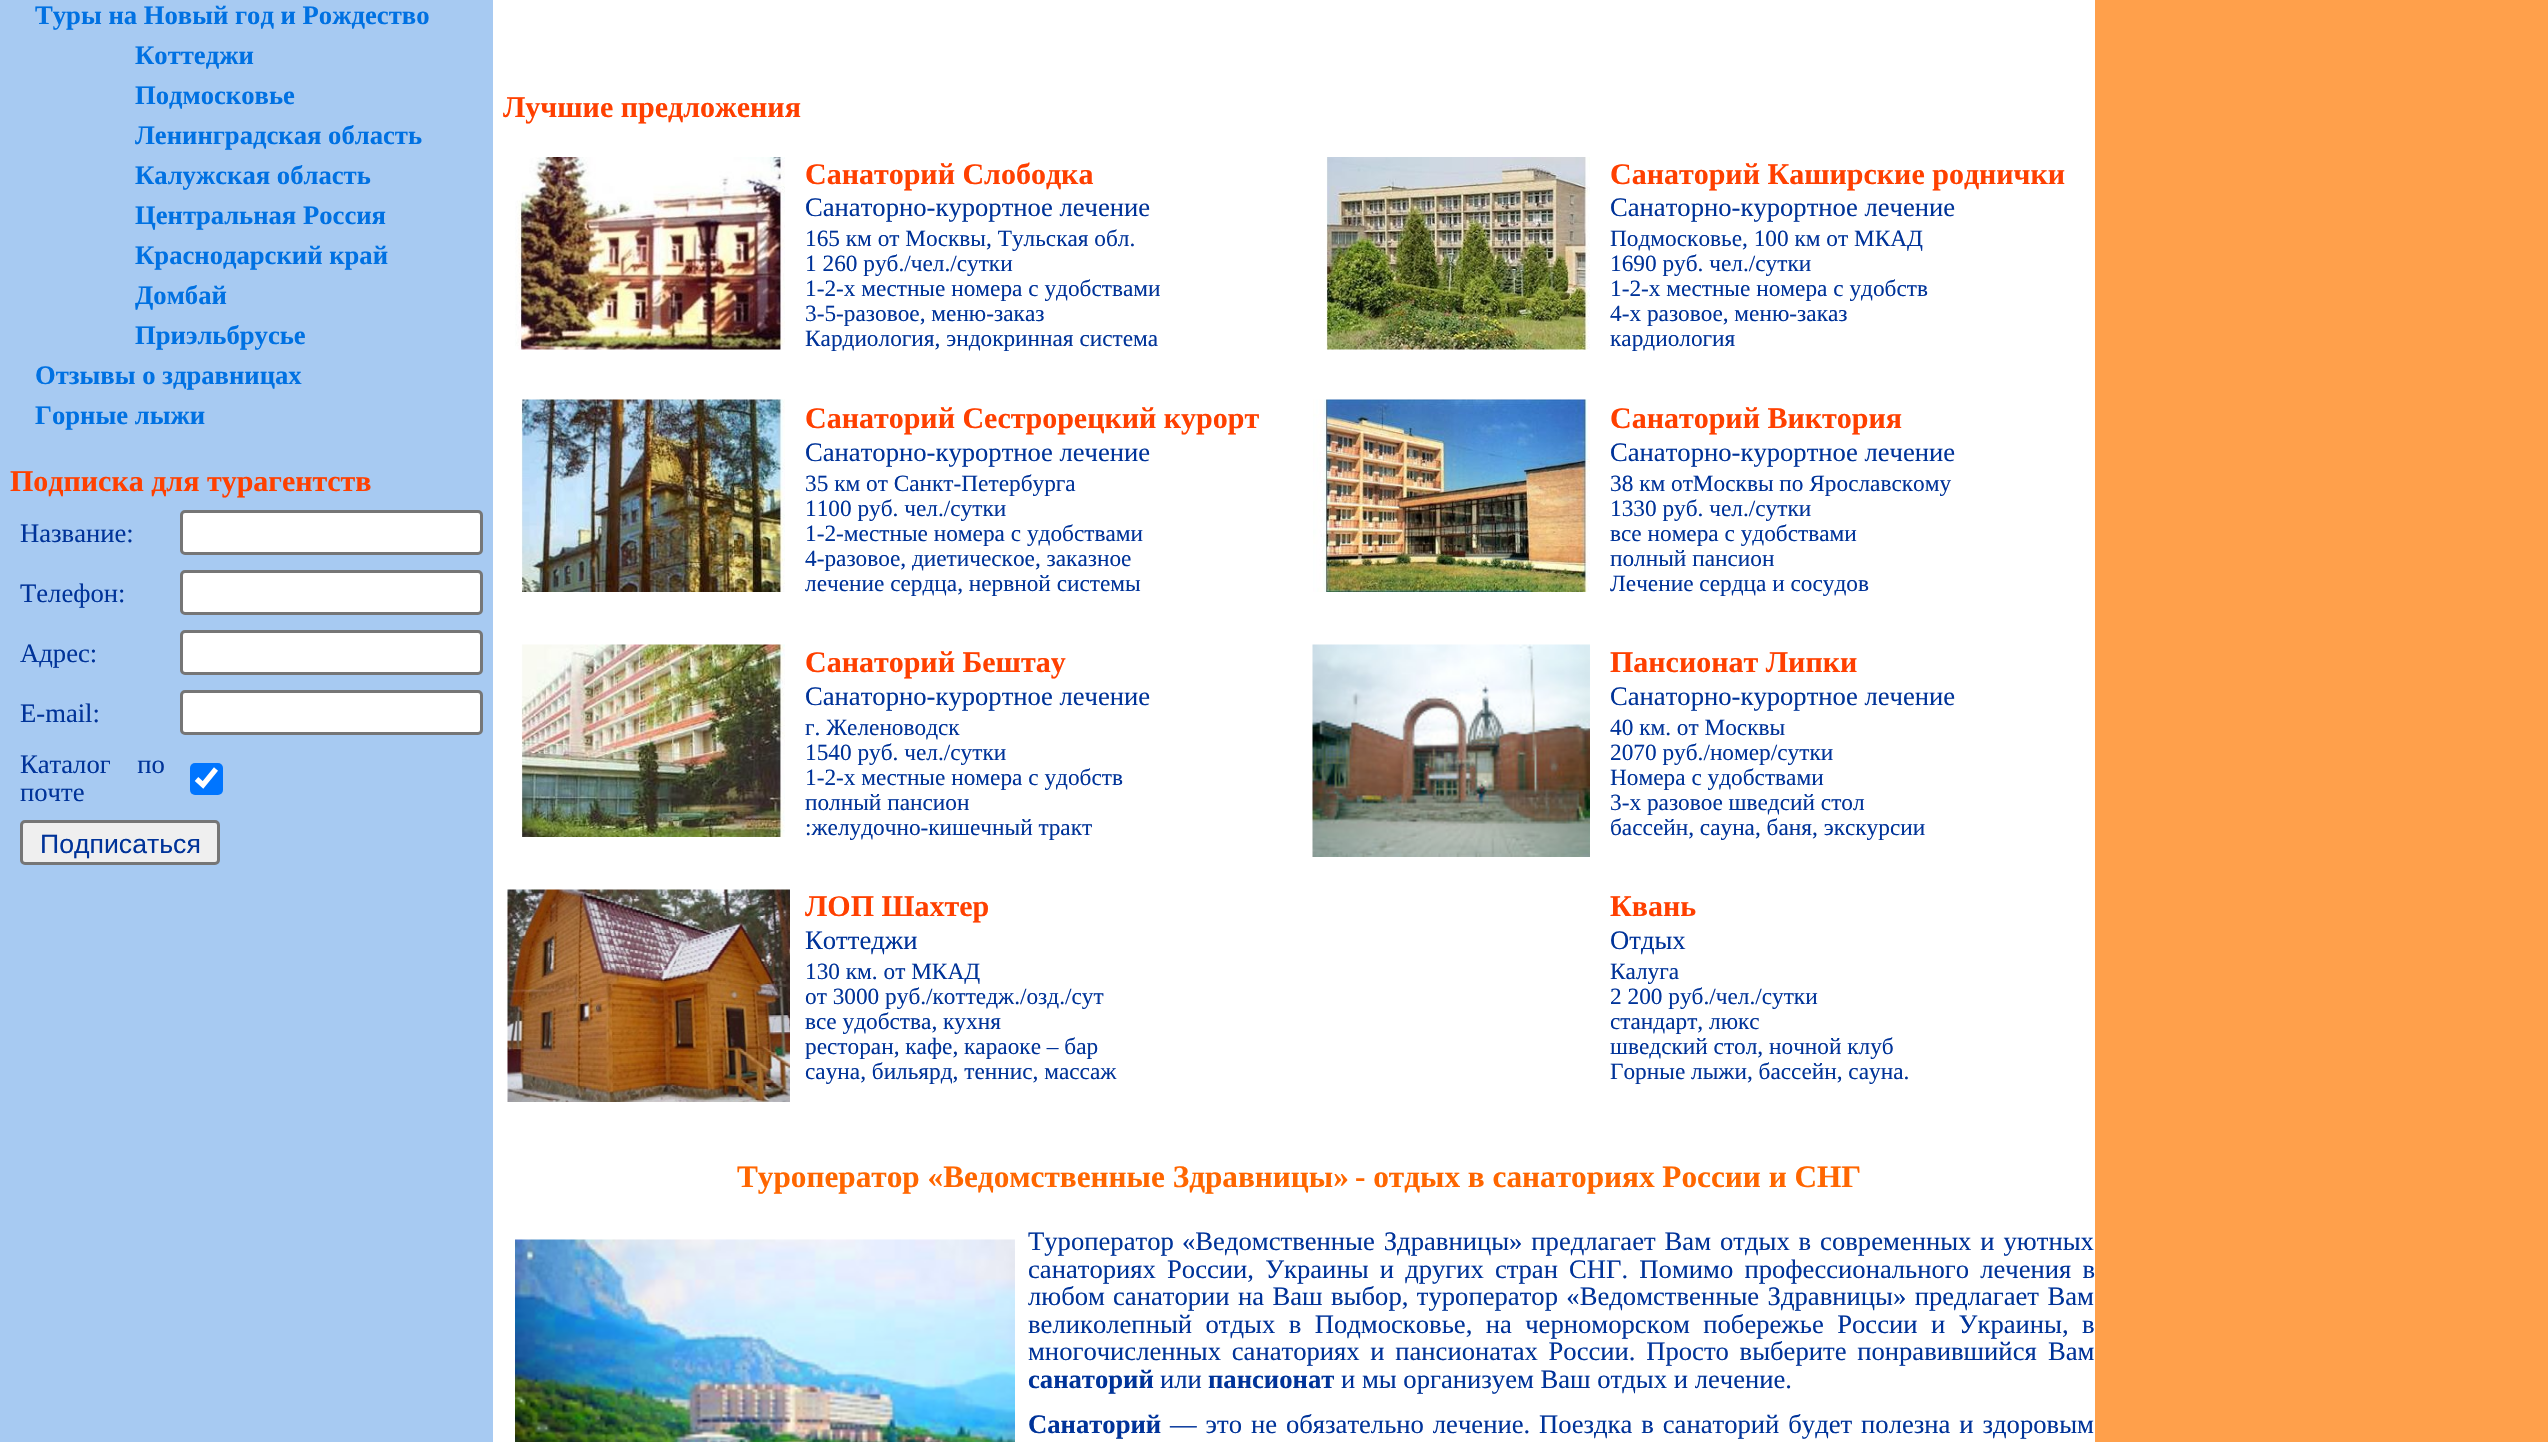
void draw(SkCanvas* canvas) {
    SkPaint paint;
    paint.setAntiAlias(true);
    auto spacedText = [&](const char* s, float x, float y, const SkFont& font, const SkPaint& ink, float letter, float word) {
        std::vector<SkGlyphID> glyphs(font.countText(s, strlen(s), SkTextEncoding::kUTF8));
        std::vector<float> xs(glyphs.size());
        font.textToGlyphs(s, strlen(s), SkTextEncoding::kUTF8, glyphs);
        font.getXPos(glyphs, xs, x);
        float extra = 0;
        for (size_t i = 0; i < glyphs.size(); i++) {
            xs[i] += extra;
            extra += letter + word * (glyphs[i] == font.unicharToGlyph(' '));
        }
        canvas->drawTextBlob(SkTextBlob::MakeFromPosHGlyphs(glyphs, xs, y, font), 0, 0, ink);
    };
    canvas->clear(0xFFFFFFFF);
    paint.setColor(0xFFA7CAF2);
    canvas->drawRect(SkRect::MakeXYWH(0, 0, 493, 1442), paint);
    paint.setColor(0xFFFFA04B);
    canvas->drawRect(SkRect::MakeXYWH(2095, 0, 453, 1442), paint);
    SkFont font1(fontMgr->matchFamilyStyle("Liberation Serif", SkFontStyle::Bold()), 26.65f);
    font1.setSubpixel(true);
    paint.setColor(0xFF0071E2);
    canvas->drawString("Туры на Новый год и Рождество", 35, 24, font1, paint);
    canvas->drawString("Коттеджи", 135, 64, font1, paint);
    canvas->drawString("Подмосковье", 135, 104, font1, paint);
    canvas->drawString("Ленинградская область", 135, 144, font1, paint);
    canvas->drawString("Калужская область", 135, 184, font1, paint);
    canvas->drawString("Центральная Россия", 135, 224, font1, paint);
    canvas->drawString("Краснодарский край", 135, 264, font1, paint);
    canvas->drawString("Домбай", 135, 304, font1, paint);
    canvas->drawString("Приэльбрусье", 135, 344, font1, paint);
    canvas->drawString("Отзывы о здравницах", 35, 384, font1, paint);
    canvas->drawString("Горные лыжи", 35, 424, font1, paint);
    SkFont font2(fontMgr->matchFamilyStyle("Liberation Serif", SkFontStyle::Bold()), 30);
    font2.setSubpixel(true);
    paint.setColor(0xFFFF4000);
    canvas->drawString("Подписка для турагентств", 10, 491, font2, paint);
    SkFont font3(fontMgr->matchFamilyStyle("Liberation Serif", SkFontStyle::Normal()), 26.65f);
    font3.setSubpixel(true);
    paint.setColor(0xFF003399);
    canvas->drawString("Название:", 20, 542, font3, paint);
    paint.setColor(0xFFFFFFFF);
    canvas->drawRoundRect(SkRect::MakeXYWH(181.5f, 511.5f, 300, 42), 3.5f, 3.5f, paint);
    paint.setStyle(SkPaint::kStroke_Style);
    paint.setStrokeWidth(3);
    paint.setColor(0xFF767676);
    canvas->drawRoundRect(SkRect::MakeXYWH(181.5f, 511.5f, 300, 42), 3.5f, 3.5f, paint);
    paint.setStyle(SkPaint::kFill_Style);
    paint.setColor(0xFF003399);
    canvas->drawString("Телефон:", 20, 602, font3, paint);
    paint.setColor(0xFFFFFFFF);
    canvas->drawRoundRect(SkRect::MakeXYWH(181.5f, 571.5f, 300, 42), 3.5f, 3.5f, paint);
    paint.setStyle(SkPaint::kStroke_Style);
    paint.setColor(0xFF767676);
    canvas->drawRoundRect(SkRect::MakeXYWH(181.5f, 571.5f, 300, 42), 3.5f, 3.5f, paint);
    paint.setStyle(SkPaint::kFill_Style);
    paint.setColor(0xFF003399);
    canvas->drawString("Адрес:", 20, 662, font3, paint);
    paint.setColor(0xFFFFFFFF);
    canvas->drawRoundRect(SkRect::MakeXYWH(181.5f, 631.5f, 300, 42), 3.5f, 3.5f, paint);
    paint.setStyle(SkPaint::kStroke_Style);
    paint.setColor(0xFF767676);
    canvas->drawRoundRect(SkRect::MakeXYWH(181.5f, 631.5f, 300, 42), 3.5f, 3.5f, paint);
    paint.setStyle(SkPaint::kFill_Style);
    paint.setColor(0xFF003399);
    canvas->drawString("E-mail:", 20, 722, font3, paint);
    paint.setColor(0xFFFFFFFF);
    canvas->drawRoundRect(SkRect::MakeXYWH(181.5f, 691.5f, 300, 42), 3.5f, 3.5f, paint);
    paint.setStyle(SkPaint::kStroke_Style);
    paint.setColor(0xFF767676);
    canvas->drawRoundRect(SkRect::MakeXYWH(181.5f, 691.5f, 300, 42), 3.5f, 3.5f, paint);
    paint.setStyle(SkPaint::kFill_Style);
    paint.setColor(0xFF003399);
    spacedText("Каталог по", 20, 773, font3, paint, 0, 20);
    canvas->drawString("почте", 20, 801, font3, paint);
    paint.setColor(0xFF0075FF);
    canvas->drawRoundRect(SkRect::MakeXYWH(190, 763, 33, 32), 5, 5, paint);
    paint.setStyle(SkPaint::kStroke_Style);
    paint.setStrokeWidth(5.2f);
    paint.setColor(0xFFFFFFFF);
    canvas->drawPath(SkPathBuilder().moveTo(196.5f, 779).lineTo(203, 785).lineTo(216, 769).detach(), paint);
    paint.setStyle(SkPaint::kFill_Style);
    paint.setColor(0xFFEFEFEF);
    canvas->drawRoundRect(SkRect::MakeXYWH(21.5f, 821.5f, 197, 42), 3.5f, 3.5f, paint);
    paint.setStyle(SkPaint::kStroke_Style);
    paint.setStrokeWidth(3);
    paint.setColor(0xFF767676);
    canvas->drawRoundRect(SkRect::MakeXYWH(21.5f, 821.5f, 197, 42), 3.5f, 3.5f, paint);
    SkFont font4(fontMgr->matchFamilyStyle("Liberation Sans", SkFontStyle::Normal()), 26.65f);
    font4.setSubpixel(true);
    paint.setStyle(SkPaint::kFill_Style);
    paint.setColor(0xFF003399);
    canvas->drawString("Подписаться", 40, 853, font4, paint);
    paint.setColor(0xFFFF4000);
    canvas->drawString("Лучшие предложения", 503, 117, font2, paint);
    canvas->drawImageRect(SkImages::DeferredFromEncodedData(SkData::MakeFromFileName("img1.png")), SkRect::MakeXYWH(515, 157, 270, 193), SkSamplingOptions());
    canvas->drawString("Санаторий Слободка", 805, 184, font2, paint);
    paint.setColor(0xFF003399);
    canvas->drawString("Санаторно-курортное лечение", 805, 216, font3, paint);
    SkFont font5(fontMgr->matchFamilyStyle("Liberation Serif", SkFontStyle::Normal()), 23.3f);
    font5.setSubpixel(true);
    canvas->drawString("165 км от Москвы, Тульская обл.", 805, 246, font5, paint);
    canvas->drawString("1 260 руб./чел./сутки", 805, 271, font5, paint);
    canvas->drawString("1-2-х местные номера с удобствами", 805, 296, font5, paint);
    canvas->drawString("3-5-разовое, меню-заказ", 805, 321, font5, paint);
    canvas->drawString("Кардиология, эндокринная система", 805, 346, font5, paint);
    canvas->drawImageRect(SkImages::DeferredFromEncodedData(SkData::MakeFromFileName("img2.png")), SkRect::MakeXYWH(1326, 157, 264, 193), SkSamplingOptions());
    paint.setColor(0xFFFF4000);
    canvas->drawString("Санаторий Каширские роднички", 1610, 184, font2, paint);
    paint.setColor(0xFF003399);
    canvas->drawString("Санаторно-курортное лечение", 1610, 216, font3, paint);
    canvas->drawString("Подмосковье, 100 км от МКАД", 1610, 246, font5, paint);
    canvas->drawString("1690 руб. чел./сутки", 1610, 271, font5, paint);
    canvas->drawString("1-2-х местные номера с удобств", 1610, 296, font5, paint);
    canvas->drawString("4-х разовое, меню-заказ", 1610, 321, font5, paint);
    canvas->drawString("кардиология", 1610, 346, font5, paint);
    canvas->drawImageRect(SkImages::DeferredFromEncodedData(SkData::MakeFromFileName("img3.png")), SkRect::MakeXYWH(521, 399, 264, 193), SkSamplingOptions());
    paint.setColor(0xFFFF4000);
    canvas->drawString("Санаторий Сестрорецкий курорт", 805, 428, font2, paint);
    paint.setColor(0xFF003399);
    canvas->drawString("Санаторно-курортное лечение", 805, 461, font3, paint);
    canvas->drawString("35 км от Санкт-Петербурга", 805, 491, font5, paint);
    canvas->drawString("1100 руб. чел./сутки", 805, 516, font5, paint);
    canvas->drawString("1-2-местные номера с удобствами", 805, 541, font5, paint);
    canvas->drawString("4-разовое, диетическое, заказное", 805, 566, font5, paint);
    canvas->drawString("лечение сердца, нервной системы", 805, 591, font5, paint);
    canvas->drawImageRect(SkImages::DeferredFromEncodedData(SkData::MakeFromFileName("img4.png")), SkRect::MakeXYWH(1313, 399, 277, 193), SkSamplingOptions());
    paint.setColor(0xFFFF4000);
    canvas->drawString("Санаторий Виктория", 1610, 428, font2, paint);
    paint.setColor(0xFF003399);
    canvas->drawString("Санаторно-курортное лечение", 1610, 461, font3, paint);
    canvas->drawString("38 км отМосквы по Ярославскому", 1610, 491, font5, paint);
    canvas->drawString("1330 руб. чел./сутки", 1610, 516, font5, paint);
    canvas->drawString("все номера с удобствами", 1610, 541, font5, paint);
    canvas->drawString("полный пансион", 1610, 566, font5, paint);
    canvas->drawString("Лечение сердца и сосудов", 1610, 591, font5, paint);
    canvas->drawImageRect(SkImages::DeferredFromEncodedData(SkData::MakeFromFileName("img5.png")), SkRect::MakeXYWH(521, 644, 264, 193), SkSamplingOptions());
    paint.setColor(0xFFFF4000);
    canvas->drawString("Санаторий Бештау", 805, 672, font2, paint);
    paint.setColor(0xFF003399);
    canvas->drawString("Санаторно-курортное лечение", 805, 705, font3, paint);
    canvas->drawString("г. Желеноводск", 805, 735, font5, paint);
    canvas->drawString("1540 руб. чел./сутки", 805, 760, font5, paint);
    canvas->drawString("1-2-х местные номера с удобств", 805, 785, font5, paint);
    canvas->drawString("полный пансион", 805, 810, font5, paint);
    canvas->drawString(":желудочно-кишечный тракт", 805, 835, font5, paint);
    canvas->drawImageRect(SkImages::DeferredFromEncodedData(SkData::MakeFromFileName("img6.png")), SkRect::MakeXYWH(1312, 644, 278, 213), SkSamplingOptions());
    paint.setColor(0xFFFF4000);
    canvas->drawString("Пансионат Липки", 1610, 672, font2, paint);
    paint.setColor(0xFF003399);
    canvas->drawString("Санаторно-курортное лечение", 1610, 705, font3, paint);
    canvas->drawString("40 км. от Москвы", 1610, 735, font5, paint);
    canvas->drawString("2070 руб./номер/сутки", 1610, 760, font5, paint);
    canvas->drawString("Номера с удобствами", 1610, 785, font5, paint);
    canvas->drawString("3-х разовое шведсий стол", 1610, 810, font5, paint);
    canvas->drawString("бассейн, сауна, баня, экскурсии", 1610, 835, font5, paint);
    canvas->drawImageRect(SkImages::DeferredFromEncodedData(SkData::MakeFromFileName("img7.png")), SkRect::MakeXYWH(507, 889, 283, 213), SkSamplingOptions());
    paint.setColor(0xFFFF4000);
    canvas->drawString("ЛОП Шахтер", 805, 916, font2, paint);
    paint.setColor(0xFF003399);
    canvas->drawString("Коттеджи", 805, 949, font3, paint);
    canvas->drawString("130 км. от МКАД", 805, 979, font5, paint);
    canvas->drawString("от 3000 руб./коттедж./озд./сут", 805, 1004, font5, paint);
    canvas->drawString("все удобства, кухня", 805, 1029, font5, paint);
    canvas->drawString("ресторан, кафе, караоке – бар", 805, 1054, font5, paint);
    canvas->drawString("сауна, бильярд, теннис, массаж", 805, 1079, font5, paint);
    paint.setColor(0xFFFF4000);
    canvas->drawString("Квань", 1610, 916, font2, paint);
    paint.setColor(0xFF003399);
    canvas->drawString("Отдых", 1610, 949, font3, paint);
    canvas->drawString("Калуга", 1610, 979, font5, paint);
    canvas->drawString("2 200 руб./чел./сутки", 1610, 1004, font5, paint);
    canvas->drawString("стандарт, люкс", 1610, 1029, font5, paint);
    canvas->drawString("шведский стол, ночной клуб", 1610, 1054, font5, paint);
    canvas->drawString("Горные лыжи, бассейн, сауна.", 1610, 1079, font5, paint);
    SkFont font6(fontMgr->matchFamilyStyle("Liberation Serif", SkFontStyle::Bold()), 31.25f);
    font6.setSubpixel(true);
    paint.setColor(0xFFFF6600);
    canvas->drawString("Туроператор «Ведомственные Здравницы»", 737, 1187, font6, paint);
    canvas->drawString("- отдых в санаториях России и СНГ", 1355, 1187, font6, paint);
    canvas->drawImageRect(SkImages::DeferredFromEncodedData(SkData::MakeFromFileName("img8.png")), SkRect::MakeXYWH(515, 1239, 500, 203), SkSamplingOptions());
    paint.setColor(0xFF003399);
    canvas->drawString("Туроператор", 1028, 1250, font3, paint);
    spacedText("«Ведомственные Здравницы» предлагает Вам отдых в современных и уютных", 1182, 1250, font3, paint, 0, 2.25f);
    canvas->drawString("санаториях", 1028, 1278, font3, paint);
    spacedText("России, Украины и других стран СНГ. Помимо профессионального лечения в", 1167, 1278, font3, paint, 0, 4.5f);
    canvas->drawString("любом", 1028, 1305, font3, paint);
    spacedText("санатории на Ваш выбор, туроператор «Ведомственные Здравницы» предлагает Вам", 1113, 1305, font3, paint, 0, 1.75f);
    spacedText("великолепный отдых в Подмосковье, на черноморском побережье России и Украины,", 1028, 1333, font3, paint, 0, 6.75f);
    canvas->drawString("в", 2082, 1333, font3, paint);
    spacedText("многочисленных санаториях и пансионатах России. Просто выберите понравившийся", 1028, 1360, font3, paint, 0, 4);
    canvas->drawString("Вам", 2048, 1360, font3, paint);
    canvas->drawString("санаторий", 1028, 1388, font1, paint);
    canvas->drawString("или", 1160, 1388, font3, paint);
    canvas->drawString("пансионат", 1208, 1388, font1, paint);
    canvas->drawString("и мы организуем Ваш отдых и лечение.", 1341, 1388, font3, paint);
    canvas->drawString("Санаторий", 1028, 1433, font1, paint);
    spacedText("— это не обязательно лечение. Поездка в санаторий будет полезна и здоровым", 1170, 1433, font3, paint, 0, 2.25f);
}
